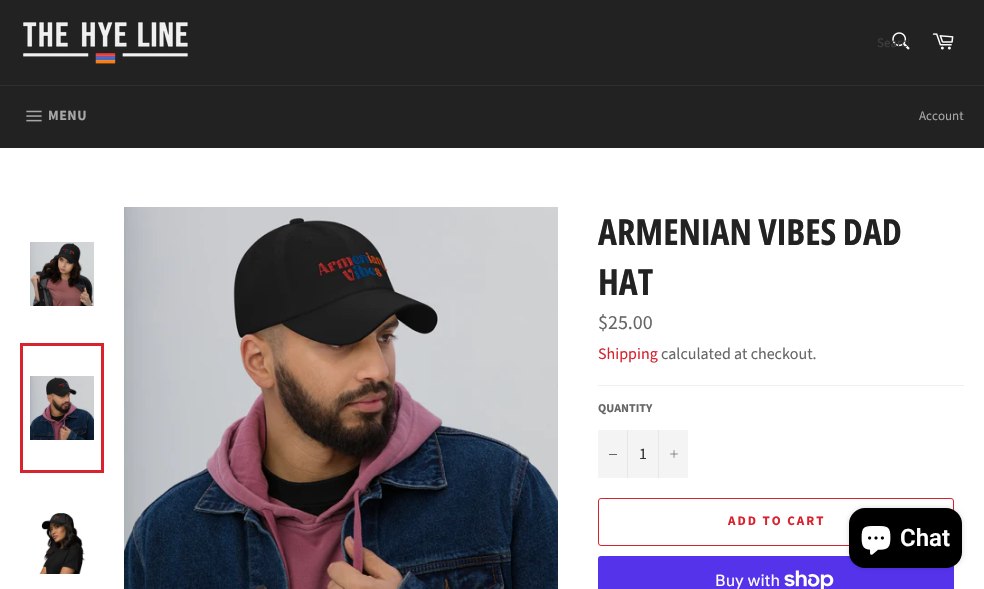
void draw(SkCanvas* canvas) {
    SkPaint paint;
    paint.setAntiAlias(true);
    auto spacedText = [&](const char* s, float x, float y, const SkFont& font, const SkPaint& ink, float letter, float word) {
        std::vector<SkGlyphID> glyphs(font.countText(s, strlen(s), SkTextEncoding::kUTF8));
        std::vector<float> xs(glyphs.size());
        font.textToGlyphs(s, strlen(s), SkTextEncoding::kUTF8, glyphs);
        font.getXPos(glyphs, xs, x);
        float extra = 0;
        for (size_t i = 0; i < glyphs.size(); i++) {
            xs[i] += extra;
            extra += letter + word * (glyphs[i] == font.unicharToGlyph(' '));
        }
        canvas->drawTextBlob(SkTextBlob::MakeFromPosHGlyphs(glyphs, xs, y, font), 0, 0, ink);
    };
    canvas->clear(0xFF222222);
    canvas->drawImageRect(SkImages::DeferredFromEncodedData(SkData::MakeFromFileName("img1.png")), SkRect::MakeXYWH(23, 22, 165, 42), SkSamplingOptions());
    canvas->drawImageRect(SkImages::DeferredFromEncodedData(SkData::MakeFromFileName("img2.png")), SkRect::MakeXYWH(892, 32, 18, 18), SkSamplingOptions());
    canvas->save();
    canvas->clipRect(SkRect::MakeXYWH(877, 34, 32, 18));
    SkFont font1(fontMgr->matchFamilyStyle("Source Sans Pro", SkFontStyle::Normal()), 13);
    font1.setSubpixel(true);
    paint.setColor(0xFF3E3E3E);
    canvas->drawString("Search", 877, 47, font1, paint);
    canvas->restore();
    canvas->drawImageRect(SkImages::DeferredFromEncodedData(SkData::MakeFromFileName("img3.png")), SkRect::MakeXYWH(932, 33, 22, 17), SkSamplingOptions());
    paint.setColor(0xFF2F2F2F);
    canvas->drawRect(SkRect::MakeXYWH(0, 85, 984, 1), paint);
    canvas->drawImageRect(SkImages::DeferredFromEncodedData(SkData::MakeFromFileName("img4.png")), SkRect::MakeXYWH(26, 110, 16, 12), SkSamplingOptions());
    SkFont font2(fontMgr->matchFamilyStyle("Source Sans Pro", SkFontStyle::Bold()), 14);
    font2.setSubpixel(true);
    paint.setColor(0xFFA7A7A7);
    spacedText("MENU", 48, 120, font2, paint, 0.5f, 0);
    canvas->drawString("Account", 919, 120, font1, paint);
    paint.setColor(0xFFFFFFFF);
    canvas->drawRect(SkRect::MakeXYWH(0, 148, 984, 441), paint);
    canvas->drawImageRect(SkImages::DeferredFromEncodedData(SkData::MakeFromFileName("img5.png")), SkRect::MakeXYWH(30, 242, 64, 64), SkSamplingOptions());
    canvas->drawImageRect(SkImages::DeferredFromEncodedData(SkData::MakeFromFileName("img6.png")), SkRect::MakeXYWH(30, 376, 64, 64), SkSamplingOptions());
    paint.setStyle(SkPaint::kStroke_Style);
    paint.setStrokeWidth(3);
    paint.setColor(0xFFD8232F);
    canvas->drawRect(SkRect::MakeXYWH(21.5f, 344.5f, 81, 127), paint);
    canvas->drawImageRect(SkImages::DeferredFromEncodedData(SkData::MakeFromFileName("img7.png")), SkRect::MakeXYWH(39, 513, 47, 61), SkSamplingOptions());
    canvas->drawImageRect(SkImages::DeferredFromEncodedData(SkData::MakeFromFileName("img8.png")), SkRect::MakeXYWH(124, 207, 434, 382), SkSamplingOptions());
    SkFont font3(fontMgr->matchFamilyStyle("Open Sans Condensed", SkFontStyle::Bold()), 36);
    font3.setSubpixel(true);
    paint.setStyle(SkPaint::kFill_Style);
    paint.setColor(0xFF222222);
    canvas->drawString("ARMENIAN VIBES DAD", 598, 245, font3, paint);
    canvas->drawString("HAT", 598, 295, font3, paint);
    SkFont font4(fontMgr->matchFamilyStyle("Source Sans Pro", SkFontStyle::Normal()), 20);
    font4.setSubpixel(true);
    paint.setColor(0xFF666666);
    canvas->drawString("$25.00", 598, 329, font4, paint);
    SkFont font5(fontMgr->matchFamilyStyle("Source Sans Pro", SkFontStyle::Normal()), 16);
    font5.setSubpixel(true);
    paint.setColor(0xFFD8232F);
    canvas->drawString("Shipping", 598, 359, font5, paint);
    paint.setColor(0xFF666666);
    canvas->drawString("calculated at checkout.", 661, 359, font5, paint);
    paint.setColor(0xFFF0F0F0);
    canvas->drawRect(SkRect::MakeXYWH(598, 385, 366, 1), paint);
    SkFont font6(fontMgr->matchFamilyStyle("Source Sans Pro", SkFontStyle::Bold()), 12);
    font6.setSubpixel(true);
    paint.setColor(0xFF666666);
    canvas->drawString("QUANTITY", 598, 412, font6, paint);
    paint.setColor(0xFFF4F4F4);
    canvas->drawRect(SkRect::MakeXYWH(598, 430, 90, 48), paint);
    paint.setColor(0xFFE7E7E7);
    canvas->drawRect(SkRect::MakeXYWH(627, 430, 1, 48), paint);
    paint.setColor(0xFF666666);
    canvas->drawRect(SkRect::MakeXYWH(609, 454, 8, 1), paint);
    paint.setColor(0xFF333333);
    canvas->drawString("1", 639, 459, font5, paint);
    paint.setColor(0xFFE7E7E7);
    canvas->drawRect(SkRect::MakeXYWH(658, 430, 1, 48), paint);
    canvas->drawImageRect(SkImages::DeferredFromEncodedData(SkData::MakeFromFileName("img9.png")), SkRect::MakeXYWH(670, 450, 8, 8), SkSamplingOptions());
    paint.setStyle(SkPaint::kStroke_Style);
    paint.setStrokeWidth(1);
    paint.setColor(0xFFD8232F);
    canvas->drawRoundRect(SkRect::MakeXYWH(598.5f, 498.5f, 355, 47), 2.5f, 2.5f, paint);
    SkFont font7(fontMgr->matchFamilyStyle("Source Sans Pro", SkFontStyle::Bold()), 13);
    font7.setSubpixel(true);
    paint.setStyle(SkPaint::kFill_Style);
    spacedText("ADD TO CART", 728, 525, font7, paint, 2, 0);
    paint.setColor(0xFF5433EB);
    canvas->drawRoundRect(SkRect::MakeXYWH(598, 556, 356, 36), 3, 3, paint);
    SkFont font8(fontMgr->matchFamilyStyle("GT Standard", SkFontStyle::Normal()), 16);
    font8.setSubpixel(true);
    paint.setColor(0xFFFFFFFF);
    canvas->drawString("Buy with", 715, 586, font8, paint);
    canvas->drawImageRect(SkImages::DeferredFromEncodedData(SkData::MakeFromFileName("img10.png")), SkRect::MakeXYWH(784, 570, 50, 19), SkSamplingOptions());
    paint.setColor(0x26000000);
    paint.setMaskFilter(SkMaskFilter::MakeBlur(kNormal_SkBlurStyle, 2.5f));
    canvas->drawRoundRect(SkRect::MakeXYWH(849, 508, 113, 60), 16, 16, paint);
    paint.setMaskFilter(nullptr);
    paint.setColor(0xFF000000);
    canvas->drawRoundRect(SkRect::MakeXYWH(849, 508, 113, 60), 16, 16, paint);
    canvas->drawImageRect(SkImages::DeferredFromEncodedData(SkData::MakeFromFileName("img11.png")), SkRect::MakeXYWH(861, 526, 30, 29), SkSamplingOptions());
    SkFont font9(fontMgr->matchFamilyStyle("Roboto", SkFontStyle(600, SkFontStyle::kNormal_Width, SkFontStyle::kUpright_Slant)), 24);
    font9.setSubpixel(true);
    paint.setColor(0xFFFFFFFF);
    canvas->drawString("Chat", 900, 546, font9, paint);
}
